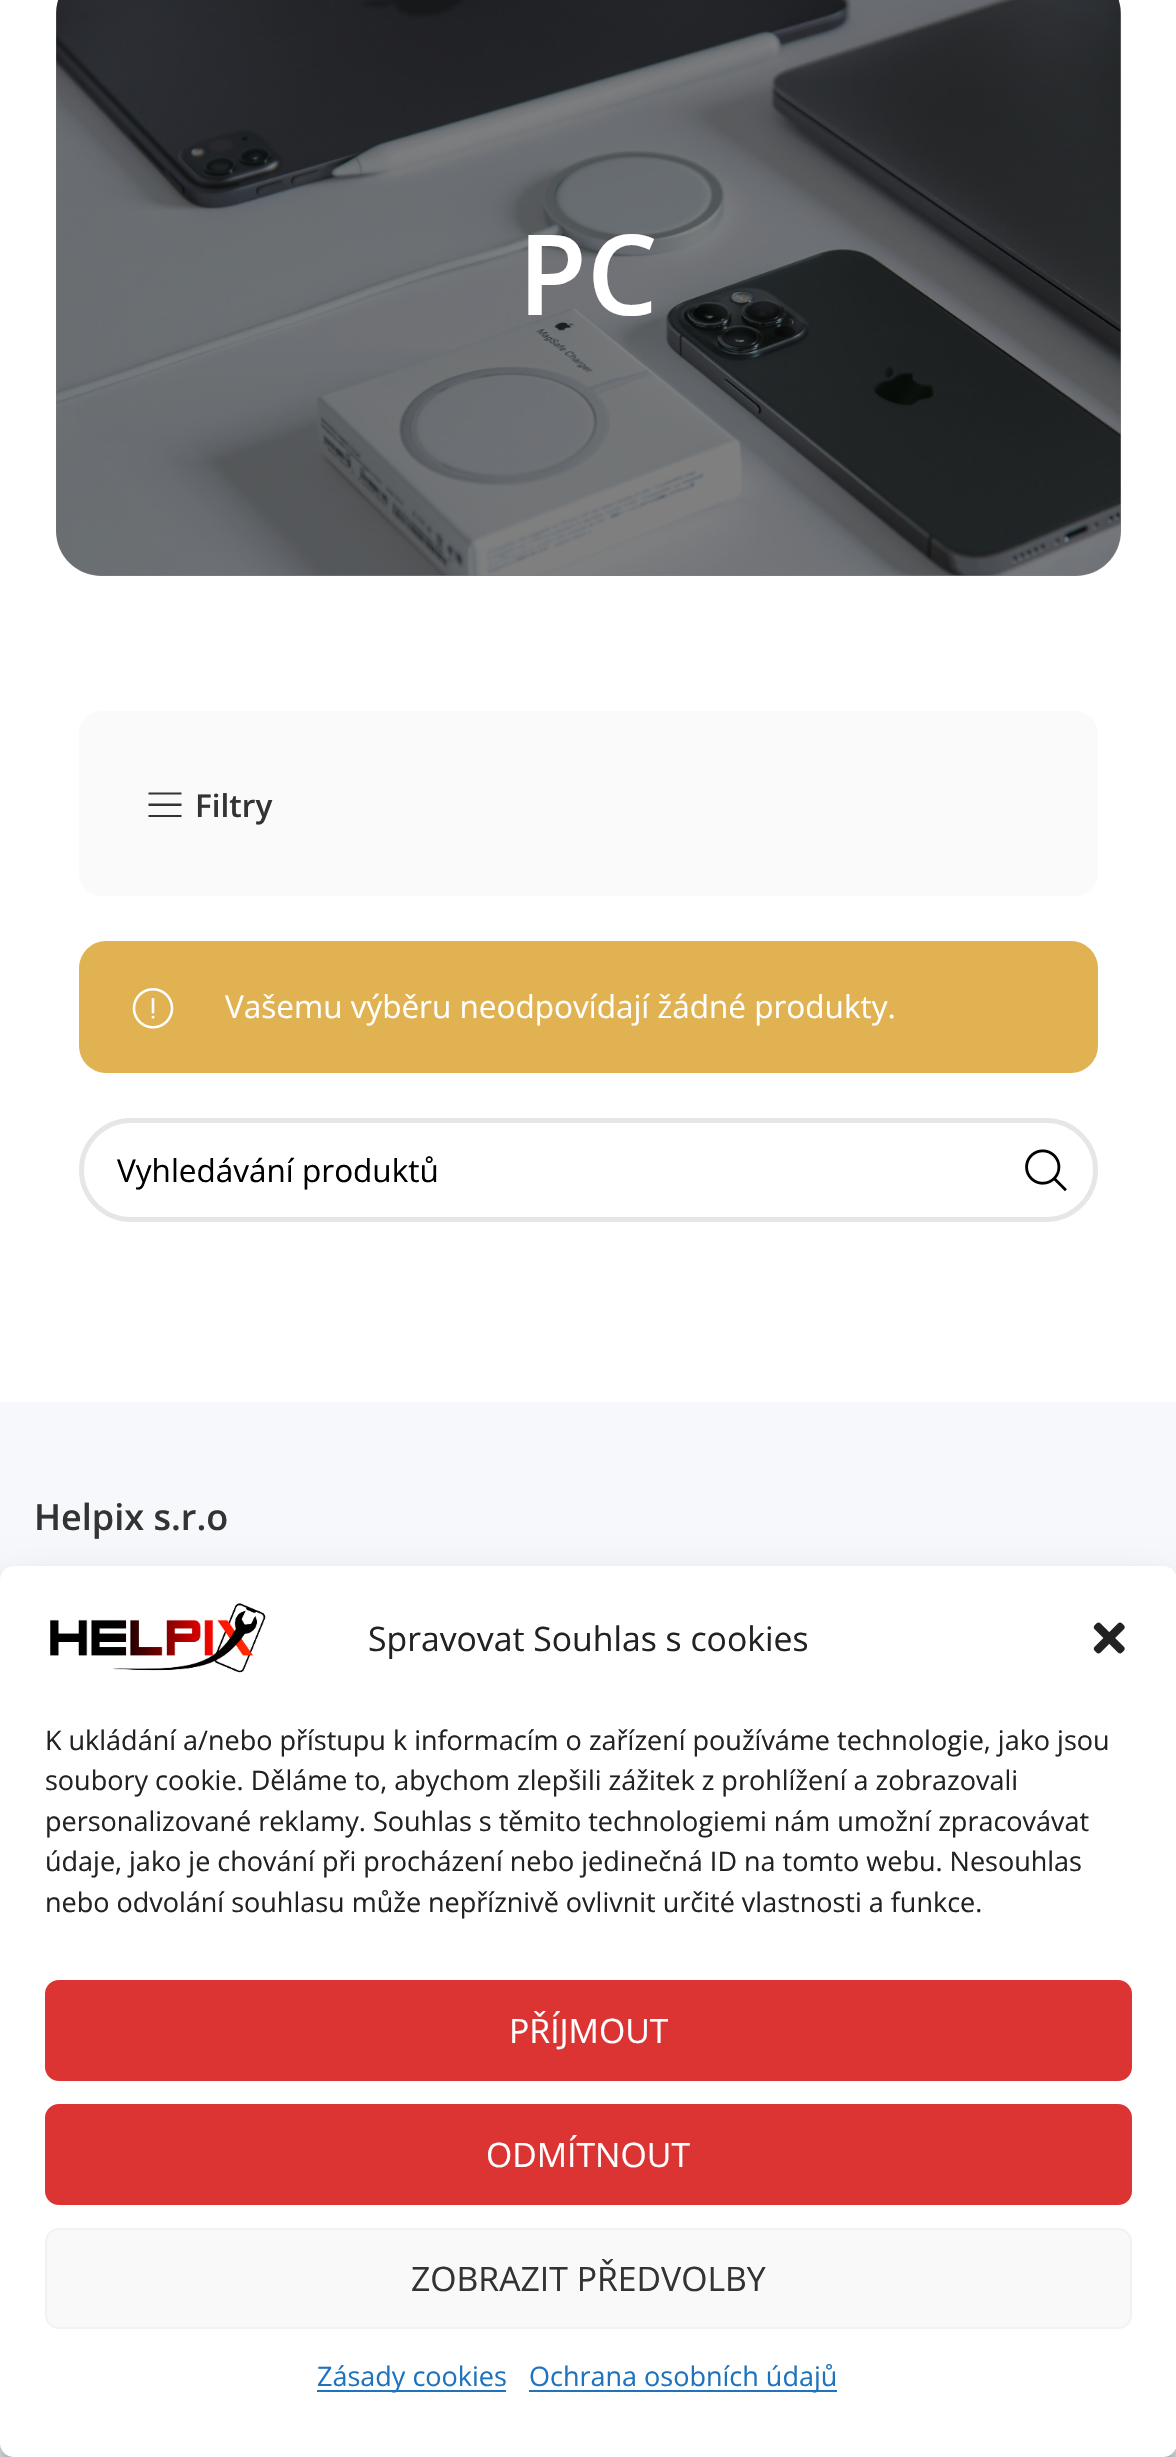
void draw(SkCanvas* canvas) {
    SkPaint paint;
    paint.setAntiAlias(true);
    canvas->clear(0xFFFFFFFF);
    canvas->drawImageRect(SkImages::DeferredFromEncodedData(SkData::MakeFromFileName("img1.png")), SkRect::MakeXYWH(56, 0, 1065, 576), SkSamplingOptions());
    paint.setColor(0x80000000);
    canvas->drawRoundRect(SkRect::MakeXYWH(56, -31, 1065, 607), 45, 45, paint);
    SkFont font1(fontMgr->matchFamilyStyle("Open Sans", SkFontStyle(600, SkFontStyle::kNormal_Width, SkFontStyle::kUpright_Slant)), 112);
    font1.setSubpixel(true);
    paint.setColor(0xFFFFFFFF);
    canvas->drawString("PC", 518, 315, font1, paint);
    paint.setColor(0xFFFAFAFA);
    canvas->drawRoundRect(SkRect::MakeXYWH(79, 711, 1019, 185), 23, 23, paint);
    paint.setColor(0xFF333333);
    canvas->drawPath(SkPathBuilder().moveTo(148.5f, 794.5f).lineTo(181.5f, 794.5f).lineTo(181.5f, 792.5f).lineTo(148.5f, 792.5f).close().moveTo(148.5f, 806).lineTo(181.5f, 806).lineTo(181.5f, 803.5f).lineTo(148.5f, 803.5f).close().moveTo(148.5f, 817).lineTo(181.5f, 817).lineTo(181.5f, 815).lineTo(148.5f, 815).close().detach(), paint);
    SkFont font2(fontMgr->matchFamilyStyle("Open Sans", SkFontStyle(600, SkFontStyle::kNormal_Width, SkFontStyle::kUpright_Slant)), 31.5f);
    font2.setSubpixel(true);
    canvas->drawString("Filtry", 195, 817, font2, paint);
    paint.setColor(0xFFE0B252);
    canvas->drawRoundRect(SkRect::MakeXYWH(79, 941, 1019, 132), 27, 27, paint);
    canvas->drawImageRect(SkImages::DeferredFromEncodedData(SkData::MakeFromFileName("img2.png")), SkRect::MakeXYWH(132, 988, 42, 41), SkSamplingOptions());
    SkFont font3(fontMgr->matchFamilyStyle("Open Sans", SkFontStyle::Normal()), 31.5f);
    font3.setSubpixel(true);
    paint.setColor(0xFFFFFFFF);
    canvas->drawString("Vašemu výběru neodpovídají žádné produkty.", 225, 1018, font3, paint);
    paint.setStyle(SkPaint::kStroke_Style);
    paint.setStrokeWidth(5);
    paint.setColor(0xFFE6E6E6);
    canvas->drawRoundRect(SkRect::MakeXYWH(81.5f, 1120.5f, 1014, 99), 49.5f, 49.5f, paint);
    paint.setStyle(SkPaint::kFill_Style);
    paint.setColor(0xFF000000);
    canvas->drawString("Vyhledávání produktů", 117, 1182, font3, paint);
    canvas->drawImageRect(SkImages::DeferredFromEncodedData(SkData::MakeFromFileName("img3.png")), SkRect::MakeXYWH(1025, 1149, 42, 43), SkSamplingOptions());
    paint.setColor(0xFFF6F8FB);
    canvas->drawRect(SkRect::MakeXYWH(0, 1402, 1176, 1055), paint);
    SkFont font4(fontMgr->matchFamilyStyle("Open Sans", SkFontStyle(600, SkFontStyle::kNormal_Width, SkFontStyle::kUpright_Slant)), 36);
    font4.setSubpixel(true);
    paint.setColor(0xFF333333);
    canvas->drawString("Helpix s.r.o", 34, 1530, font4, paint);
    paint.setColor(0x3B000000);
    paint.setMaskFilter(SkMaskFilter::MakeBlur(kNormal_SkBlurStyle, 7));
    canvas->drawRoundRect(SkRect::MakeXYWH(0, 1580, 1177, 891), 14, 14, paint);
    paint.setMaskFilter(nullptr);
    paint.setColor(0x30000000);
    paint.setMaskFilter(SkMaskFilter::MakeBlur(kNormal_SkBlurStyle, 22.5f));
    canvas->drawRoundRect(SkRect::MakeXYWH(0, 1589, 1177, 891), 14, 14, paint);
    paint.setMaskFilter(nullptr);
    paint.setColor(0xFFFFFFFF);
    canvas->drawRoundRect(SkRect::MakeXYWH(0, 1566, 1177, 891), 14, 14, paint);
    canvas->drawImageRect(SkImages::DeferredFromEncodedData(SkData::MakeFromFileName("img4.png")), SkRect::MakeXYWH(50, 1603, 216, 70), SkSamplingOptions());
    SkFont font5(fontMgr->matchFamilyStyle("Open Sans", SkFontStyle::Normal()), 33.75f);
    font5.setSubpixel(true);
    paint.setColor(0xFF222222);
    canvas->drawString("Spravovat Souhlas s cookies", 368, 1651, font5, paint);
    canvas->drawImageRect(SkImages::DeferredFromEncodedData(SkData::MakeFromFileName("img5.png")), SkRect::MakeXYWH(1093, 1622, 32, 32), SkSamplingOptions());
    SkFont font6(fontMgr->matchFamilyStyle("Open Sans", SkFontStyle::Normal()), 27);
    font6.setSubpixel(true);
    canvas->drawString("K ukládání a/nebo přístupu k informacím o zařízení používáme technologie, jako jsou", 45, 1750, font6, paint);
    canvas->drawString("soubory cookie. Děláme to, abychom zlepšili zážitek z prohlížení a zobrazovali", 45, 1790, font6, paint);
    canvas->drawString("personalizované reklamy. Souhlas s těmito technologiemi nám umožní zpracovávat", 45, 1831, font6, paint);
    canvas->drawString("údaje, jako je chování při procházení nebo jedinečná ID na tomto webu. Nesouhlas", 45, 1871, font6, paint);
    canvas->drawString("nebo odvolání souhlasu může nepříznivě ovlivnit určité vlastnosti a funkce.", 45, 1912, font6, paint);
    paint.setColor(0xFFDC3333);
    canvas->drawRoundRect(SkRect::MakeXYWH(46, 1981, 1085, 99), 13, 13, paint);
    paint.setStyle(SkPaint::kStroke_Style);
    paint.setStrokeWidth(2);
    canvas->drawRoundRect(SkRect::MakeXYWH(46, 1981, 1085, 99), 13, 13, paint);
    paint.setStyle(SkPaint::kFill_Style);
    paint.setColor(0xFFFFFFFF);
    canvas->drawString("PŘÍJMOUT", 509, 2043, font5, paint);
    paint.setColor(0xFFDC3333);
    canvas->drawRoundRect(SkRect::MakeXYWH(46, 2105, 1085, 99), 13, 13, paint);
    paint.setStyle(SkPaint::kStroke_Style);
    canvas->drawRoundRect(SkRect::MakeXYWH(46, 2105, 1085, 99), 13, 13, paint);
    paint.setStyle(SkPaint::kFill_Style);
    paint.setColor(0xFFFFFFFF);
    canvas->drawString("ODMÍTNOUT", 486, 2167, font5, paint);
    paint.setColor(0xFFF9F9F9);
    canvas->drawRoundRect(SkRect::MakeXYWH(46, 2229, 1085, 99), 13, 13, paint);
    paint.setStyle(SkPaint::kStroke_Style);
    paint.setColor(0xFFF2F2F2);
    canvas->drawRoundRect(SkRect::MakeXYWH(46, 2229, 1085, 99), 13, 13, paint);
    paint.setStyle(SkPaint::kFill_Style);
    paint.setColor(0xFF333333);
    canvas->drawString("ZOBRAZIT PŘEDVOLBY", 411, 2291, font5, paint);
    paint.setColor(0xFF1E73BE);
    canvas->drawRect(SkRect::MakeXYWH(317, 2390, 189, 2), paint);
    canvas->drawString("Zásady cookies", 317, 2386, font6, paint);
    canvas->drawRect(SkRect::MakeXYWH(529, 2390, 308, 2), paint);
    canvas->drawString("Ochrana osobních údajů", 529, 2386, font6, paint);
}
